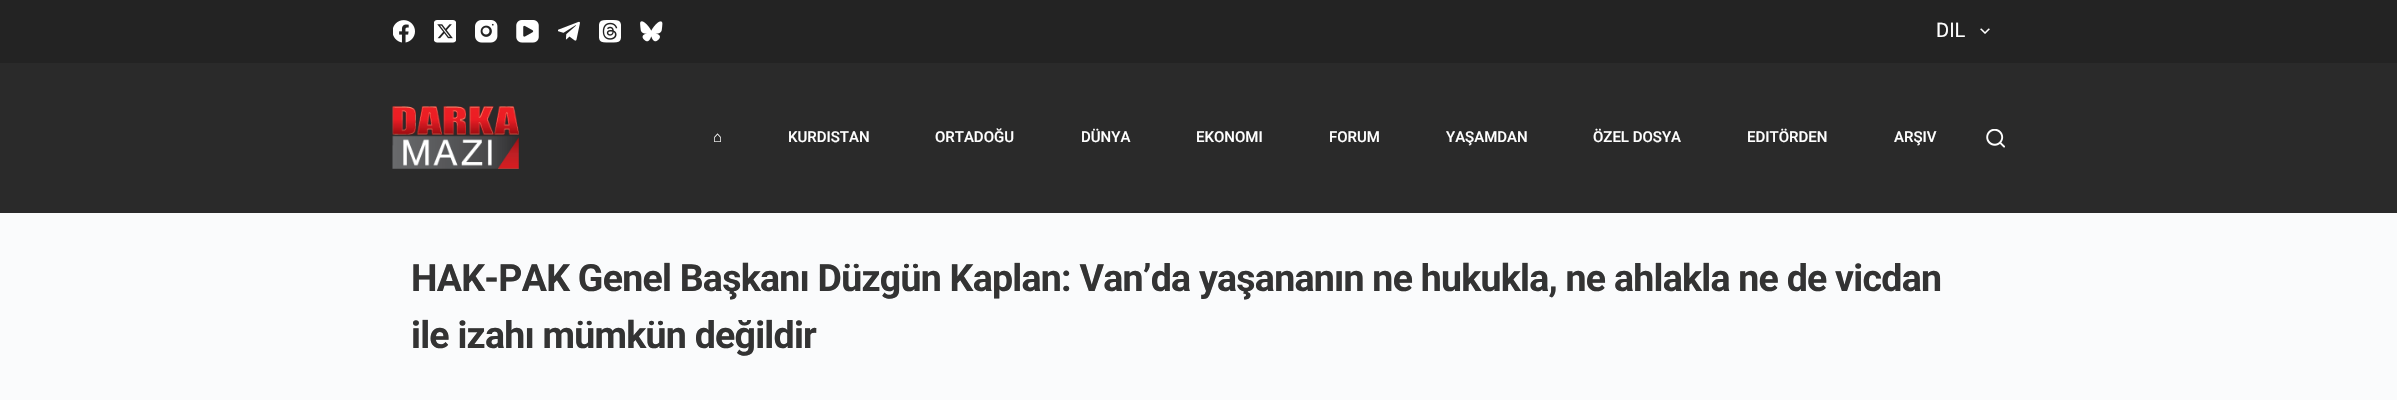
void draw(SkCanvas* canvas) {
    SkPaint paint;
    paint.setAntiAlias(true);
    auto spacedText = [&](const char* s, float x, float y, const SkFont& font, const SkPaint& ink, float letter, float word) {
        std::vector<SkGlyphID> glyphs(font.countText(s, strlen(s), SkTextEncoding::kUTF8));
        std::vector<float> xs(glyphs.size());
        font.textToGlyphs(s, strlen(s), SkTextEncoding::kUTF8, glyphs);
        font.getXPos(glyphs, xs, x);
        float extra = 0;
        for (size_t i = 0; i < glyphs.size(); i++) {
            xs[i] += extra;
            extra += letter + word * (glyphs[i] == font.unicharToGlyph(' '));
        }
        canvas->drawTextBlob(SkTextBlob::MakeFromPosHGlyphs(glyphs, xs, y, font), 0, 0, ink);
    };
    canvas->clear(0xFFFAFBFC);
    paint.setColor(0xFF232323);
    canvas->drawRect(SkRect::MakeXYWH(0, 0, 2397, 63), paint);
    canvas->drawImageRect(SkImages::DeferredFromEncodedData(SkData::MakeFromFileName("img1.png")), SkRect::MakeXYWH(393, 20, 22, 23), SkSamplingOptions());
    canvas->drawImageRect(SkImages::DeferredFromEncodedData(SkData::MakeFromFileName("img2.png")), SkRect::MakeXYWH(434, 20, 22, 23), SkSamplingOptions());
    canvas->drawImageRect(SkImages::DeferredFromEncodedData(SkData::MakeFromFileName("img3.png")), SkRect::MakeXYWH(475, 20, 23, 23), SkSamplingOptions());
    canvas->drawImageRect(SkImages::DeferredFromEncodedData(SkData::MakeFromFileName("img4.png")), SkRect::MakeXYWH(516, 20, 23, 23), SkSamplingOptions());
    canvas->drawImageRect(SkImages::DeferredFromEncodedData(SkData::MakeFromFileName("img5.png")), SkRect::MakeXYWH(558, 21, 22, 20), SkSamplingOptions());
    canvas->drawImageRect(SkImages::DeferredFromEncodedData(SkData::MakeFromFileName("img6.png")), SkRect::MakeXYWH(599, 20, 22, 23), SkSamplingOptions());
    canvas->drawImageRect(SkImages::DeferredFromEncodedData(SkData::MakeFromFileName("img7.png")), SkRect::MakeXYWH(640, 21, 23, 21), SkSamplingOptions());
    SkFont font1(fontMgr->matchFamilyStyle("Roboto", SkFontStyle::Normal()), 20);
    font1.setSubpixel(true);
    paint.setColor(0xFFFFFFFF);
    canvas->drawString("DIL", 1936, 37, font1, paint);
    canvas->drawImageRect(SkImages::DeferredFromEncodedData(SkData::MakeFromFileName("img8.png")), SkRect::MakeXYWH(1980, 28, 10, 6), SkSamplingOptions());
    paint.setColor(0xFF2A2A2A);
    canvas->drawRect(SkRect::MakeXYWH(0, 63, 2397, 150), paint);
    canvas->drawImageRect(SkImages::DeferredFromEncodedData(SkData::MakeFromFileName("img9.png")), SkRect::MakeXYWH(392, 106, 127, 63), SkSamplingOptions());
    SkFont font2(fontMgr->matchFamilyStyle("Liberation Sans", SkFontStyle::Normal()), 15);
    font2.setSubpixel(true);
    paint.setColor(0xFFFFFFFF);
    canvas->drawString("⌂", 713, 142, font2, paint);
    SkFont font3(fontMgr->matchFamilyStyle("Roboto", SkFontStyle(500, SkFontStyle::kNormal_Width, SkFontStyle::kUpright_Slant)), 15);
    font3.setSubpixel(true);
    canvas->drawString("KURDISTAN", 788, 142, font3, paint);
    canvas->drawString("ORTADOĞU", 935, 142, font3, paint);
    canvas->drawString("DÜNYA", 1081, 142, font3, paint);
    canvas->drawString("EKONOMI", 1196, 142, font3, paint);
    canvas->drawString("FORUM", 1329, 142, font3, paint);
    canvas->drawString("YAŞAMDAN", 1446, 142, font3, paint);
    canvas->drawString("ÖZEL DOSYA", 1593, 142, font3, paint);
    canvas->drawString("EDITÖRDEN", 1747, 142, font3, paint);
    canvas->drawString("ARŞIV", 1894, 142, font3, paint);
    canvas->drawImageRect(SkImages::DeferredFromEncodedData(SkData::MakeFromFileName("img10.png")), SkRect::MakeXYWH(1986, 129, 19, 19), SkSamplingOptions());
    SkFont font4(fontMgr->matchFamilyStyle("Roboto", SkFontStyle::Bold()), 37.5f);
    font4.setSubpixel(true);
    paint.setColor(0xFF333333);
    spacedText("HAK-PAK Genel Başkanı Düzgün Kaplan: Van’da yaşananın ne hukukla, ne ahlakla ne de vicdan", 411, 291, font4, paint, -0.75f, 0);
    spacedText("ile izahı mümkün değildir", 411, 348, font4, paint, -0.75f, 0);
}
